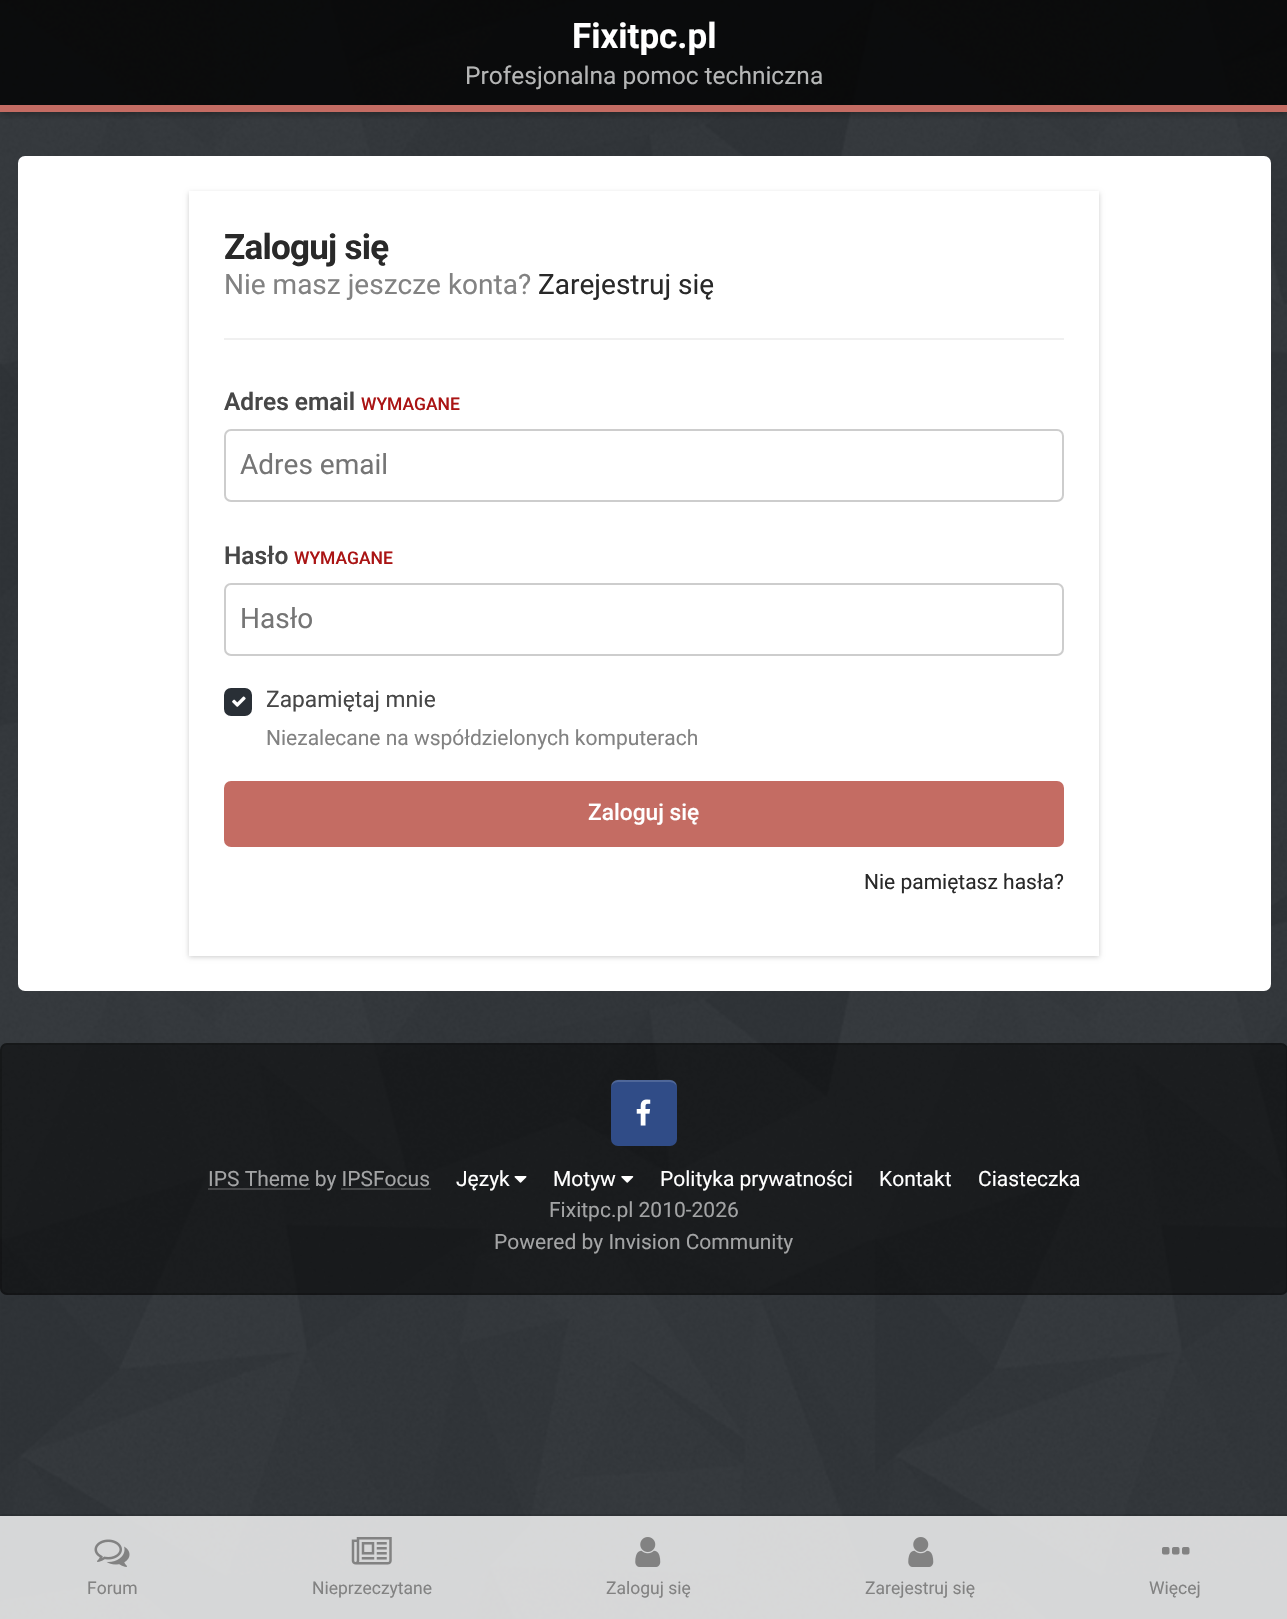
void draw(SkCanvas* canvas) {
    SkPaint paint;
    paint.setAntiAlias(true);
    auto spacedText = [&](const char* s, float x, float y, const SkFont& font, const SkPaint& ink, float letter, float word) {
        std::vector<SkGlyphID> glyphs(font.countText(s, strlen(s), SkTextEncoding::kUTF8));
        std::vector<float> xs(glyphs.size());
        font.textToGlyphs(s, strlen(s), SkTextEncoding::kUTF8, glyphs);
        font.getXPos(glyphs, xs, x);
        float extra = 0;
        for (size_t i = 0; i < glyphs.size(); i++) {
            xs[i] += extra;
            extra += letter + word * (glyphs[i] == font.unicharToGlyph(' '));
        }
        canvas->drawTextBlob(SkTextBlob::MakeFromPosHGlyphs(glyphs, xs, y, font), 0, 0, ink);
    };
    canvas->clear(0xFF2F3337);
    canvas->drawImageRect(SkImages::DeferredFromEncodedData(SkData::MakeFromFileName("img1.png")), SkRect::MakeXYWH(0, 0, 1287, 1619), SkSamplingOptions());
    canvas->save();
    canvas->clipRect(SkRect::MakeXYWH(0, 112, 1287, 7));
    paint.setColor(0x4D000000);
    paint.setMaskFilter(SkMaskFilter::MakeBlur(kNormal_SkBlurStyle, 3.5f));
    canvas->drawRect(SkRect::MakeXYWH(0, 2, 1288, 112), paint);
    paint.setMaskFilter(nullptr);
    canvas->restore();
    paint.setColor(0xCC000000);
    canvas->drawRect(SkRect::MakeXYWH(0, 0, 1287, 105), paint);
    paint.setColor(0xFFC46C63);
    canvas->drawRect(SkRect::MakeXYWH(0, 105, 1287, 7), paint);
    SkFont font1(fontMgr->matchFamilyStyle("Roboto", SkFontStyle::Bold()), 35);
    font1.setSubpixel(true);
    paint.setColor(0xFFFFFFFF);
    canvas->drawString("Fixitpc.pl", 572, 48, font1, paint);
    SkFont font2(fontMgr->matchFamilyStyle("Roboto", SkFontStyle::Normal()), 24.5f);
    font2.setSubpixel(true);
    paint.setColor(0xFFB5B6B6);
    canvas->drawString("Profesjonalna pomoc techniczna", 465, 84, font2, paint);
    paint.setColor(0xFFFFFFFF);
    canvas->drawRoundRect(SkRect::MakeXYWH(18, 156, 1253, 835), 7, 7, paint);
    paint.setColor(0x33000000);
    paint.setMaskFilter(SkMaskFilter::MakeBlur(kNormal_SkBlurStyle, 2.5f));
    canvas->drawRect(SkRect::MakeXYWH(189, 193, 910, 764), paint);
    paint.setMaskFilter(nullptr);
    paint.setColor(0xFFFFFFFF);
    canvas->drawRect(SkRect::MakeXYWH(189, 191, 910, 765), paint);
    paint.setColor(0xFF292929);
    spacedText("Zaloguj się", 224, 259, font1, paint, -0.75f, 0);
    SkFont font3(fontMgr->matchFamilyStyle("Roboto", SkFontStyle::Normal()), 28);
    font3.setSubpixel(true);
    paint.setColor(0xFF828282);
    canvas->drawString("Nie masz jeszcze konta?", 224, 294, font3, paint);
    paint.setColor(0xFF292929);
    canvas->drawString("Zarejestruj się", 538, 294, font3, paint);
    paint.setColor(0xFFF0F0F0);
    canvas->drawRect(SkRect::MakeXYWH(224, 338, 840, 2), paint);
    SkFont font4(fontMgr->matchFamilyStyle("Roboto", SkFontStyle(600, SkFontStyle::kNormal_Width, SkFontStyle::kUpright_Slant)), 24.5f);
    font4.setSubpixel(true);
    paint.setColor(0xFF474747);
    canvas->drawString("Adres email", 224, 410, font4, paint);
    SkFont font5(fontMgr->matchFamilyStyle("Roboto", SkFontStyle(500, SkFontStyle::kNormal_Width, SkFontStyle::kUpright_Slant)), 17.5f);
    font5.setSubpixel(true);
    paint.setColor(0xFFAA1414);
    canvas->drawString("WYMAGANE", 361, 410, font5, paint);
    paint.setStyle(SkPaint::kStroke_Style);
    paint.setStrokeWidth(2);
    paint.setColor(0xFFCDCDCD);
    canvas->drawRoundRect(SkRect::MakeXYWH(225, 430, 838, 71), 6, 6, paint);
    paint.setStyle(SkPaint::kFill_Style);
    paint.setColor(0xFF757575);
    canvas->drawString("Adres email", 240, 474, font3, paint);
    paint.setColor(0xFF474747);
    canvas->drawString("Hasło", 224, 564, font4, paint);
    paint.setColor(0xFFAA1414);
    canvas->drawString("WYMAGANE", 294, 564, font5, paint);
    paint.setStyle(SkPaint::kStroke_Style);
    paint.setColor(0xFFCDCDCD);
    canvas->drawRoundRect(SkRect::MakeXYWH(225, 584, 838, 71), 6, 6, paint);
    paint.setStyle(SkPaint::kFill_Style);
    paint.setColor(0xFF757575);
    canvas->drawString("Hasło", 240, 628, font3, paint);
    paint.setColor(0xFF292F36);
    canvas->drawRoundRect(SkRect::MakeXYWH(225, 689, 26, 26), 6, 6, paint);
    paint.setStyle(SkPaint::kStroke_Style);
    canvas->drawRoundRect(SkRect::MakeXYWH(225, 689, 26, 26), 6, 6, paint);
    canvas->drawImageRect(SkImages::DeferredFromEncodedData(SkData::MakeFromFileName("img2.png")), SkRect::MakeXYWH(232, 696, 14, 11), SkSamplingOptions());
    SkFont font6(fontMgr->matchFamilyStyle("Roboto", SkFontStyle::Normal()), 22.75f);
    font6.setSubpixel(true);
    paint.setStyle(SkPaint::kFill_Style);
    paint.setColor(0xFF474747);
    canvas->drawString("Zapamiętaj mnie", 266, 707, font6, paint);
    SkFont font7(fontMgr->matchFamilyStyle("Roboto", SkFontStyle::Normal()), 21);
    font7.setSubpixel(true);
    paint.setColor(0xFF828282);
    canvas->drawString("Niezalecane na współdzielonych komputerach", 266, 745, font7, paint);
    paint.setColor(0xFFC46C63);
    canvas->drawRoundRect(SkRect::MakeXYWH(224, 781, 840, 66), 7, 7, paint);
    SkFont font8(fontMgr->matchFamilyStyle("Roboto", SkFontStyle(500, SkFontStyle::kNormal_Width, SkFontStyle::kUpright_Slant)), 22.75f);
    font8.setSubpixel(true);
    paint.setColor(0xFFFFFFFF);
    canvas->drawString("Zaloguj się", 588, 820, font8, paint);
    paint.setColor(0xFF292929);
    canvas->drawString("Nie pamiętasz hasła?", 864, 889, font7, paint);
    paint.setColor(0x80000000);
    canvas->drawRoundRect(SkRect::MakeXYWH(0, 1043, 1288, 252), 7, 7, paint);
    paint.setStyle(SkPaint::kStroke_Style);
    paint.setColor(0x33000000);
    canvas->drawRoundRect(SkRect::MakeXYWH(1, 1044, 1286, 250), 6, 6, paint);
    paint.setStyle(SkPaint::kFill_Style);
    paint.setColor(0xFF304C87);
    canvas->drawRoundRect(SkRect::MakeXYWH(611, 1080, 66, 66), 7, 7, paint);
    paint.setColor(0x26FFFFFF);
    canvas->drawPath(SkPathBuilder().moveTo(618, 1082).cubicTo(614, 1082, 611, 1085, 611, 1088).cubicTo(611, 1078, 620, 1080, 627, 1080).lineTo(661, 1080).cubicTo(668, 1080, 677, 1078, 677, 1088).cubicTo(677, 1085, 674, 1082, 670, 1082).close().detach(), paint);
    canvas->drawImageRect(SkImages::DeferredFromEncodedData(SkData::MakeFromFileName("img3.png")), SkRect::MakeXYWH(636, 1099, 15, 27), SkSamplingOptions());
    paint.setColor(0x2EFFFFFF);
    canvas->drawRect(SkRect::MakeXYWH(208, 1188, 102, 2), paint);
    paint.setColor(0xFFA3A4A5);
    canvas->drawString("IPS Theme by IPSFocus", 208, 1186, font7, paint);
    paint.setColor(0xFF434546);
    canvas->drawRect(SkRect::MakeXYWH(341, 1188, 90, 2), paint);
    paint.setColor(0xFFFFFFFF);
    canvas->drawString("Język", 456, 1186, font7, paint);
    canvas->drawImageRect(SkImages::DeferredFromEncodedData(SkData::MakeFromFileName("img4.png")), SkRect::MakeXYWH(514, 1176, 13, 7), SkSamplingOptions());
    canvas->drawString("Motyw", 553, 1186, font7, paint);
    canvas->drawImageRect(SkImages::DeferredFromEncodedData(SkData::MakeFromFileName("img5.png")), SkRect::MakeXYWH(621, 1176, 13, 7), SkSamplingOptions());
    canvas->drawString("Polityka prywatności", 660, 1186, font7, paint);
    canvas->drawString("Kontakt", 879, 1186, font7, paint);
    canvas->drawString("Ciasteczka", 978, 1186, font7, paint);
    paint.setColor(0xFFA3A4A5);
    canvas->drawString("Fixitpc.pl 2010-2026", 549, 1217, font7, paint);
    canvas->drawString("Powered by Invision Community", 494, 1249, font7, paint);
    paint.setColor(0x1A000000);
    canvas->drawRect(SkRect::MakeXYWH(0, 1514, 1287, 2), paint);
    paint.setColor(0xCCFFFFFF);
    canvas->drawRect(SkRect::MakeXYWH(0, 1516, 1287, 103), paint);
    canvas->drawImageRect(SkImages::DeferredFromEncodedData(SkData::MakeFromFileName("img6.png")), SkRect::MakeXYWH(94, 1539, 36, 28), SkSamplingOptions());
    SkFont font9(fontMgr->matchFamilyStyle("Roboto", SkFontStyle::Normal()), 17.5f);
    font9.setSubpixel(true);
    paint.setColor(0xFF828282);
    canvas->drawString("Forum", 87, 1594, font9, paint);
    canvas->drawImageRect(SkImages::DeferredFromEncodedData(SkData::MakeFromFileName("img7.png")), SkRect::MakeXYWH(351, 1537, 41, 28), SkSamplingOptions());
    canvas->drawString("Nieprzeczytane", 312, 1594, font9, paint);
    canvas->drawImageRect(SkImages::DeferredFromEncodedData(SkData::MakeFromFileName("img8.png")), SkRect::MakeXYWH(635, 1537, 26, 30), SkSamplingOptions());
    canvas->drawString("Zaloguj się", 606, 1594, font9, paint);
    canvas->drawImageRect(SkImages::DeferredFromEncodedData(SkData::MakeFromFileName("img9.png")), SkRect::MakeXYWH(908, 1537, 26, 30), SkSamplingOptions());
    canvas->drawString("Zarejestruj się", 865, 1594, font9, paint);
    canvas->drawImageRect(SkImages::DeferredFromEncodedData(SkData::MakeFromFileName("img10.png")), SkRect::MakeXYWH(1162, 1547, 28, 8), SkSamplingOptions());
    canvas->drawString("Więcej", 1149, 1594, font9, paint);
}
